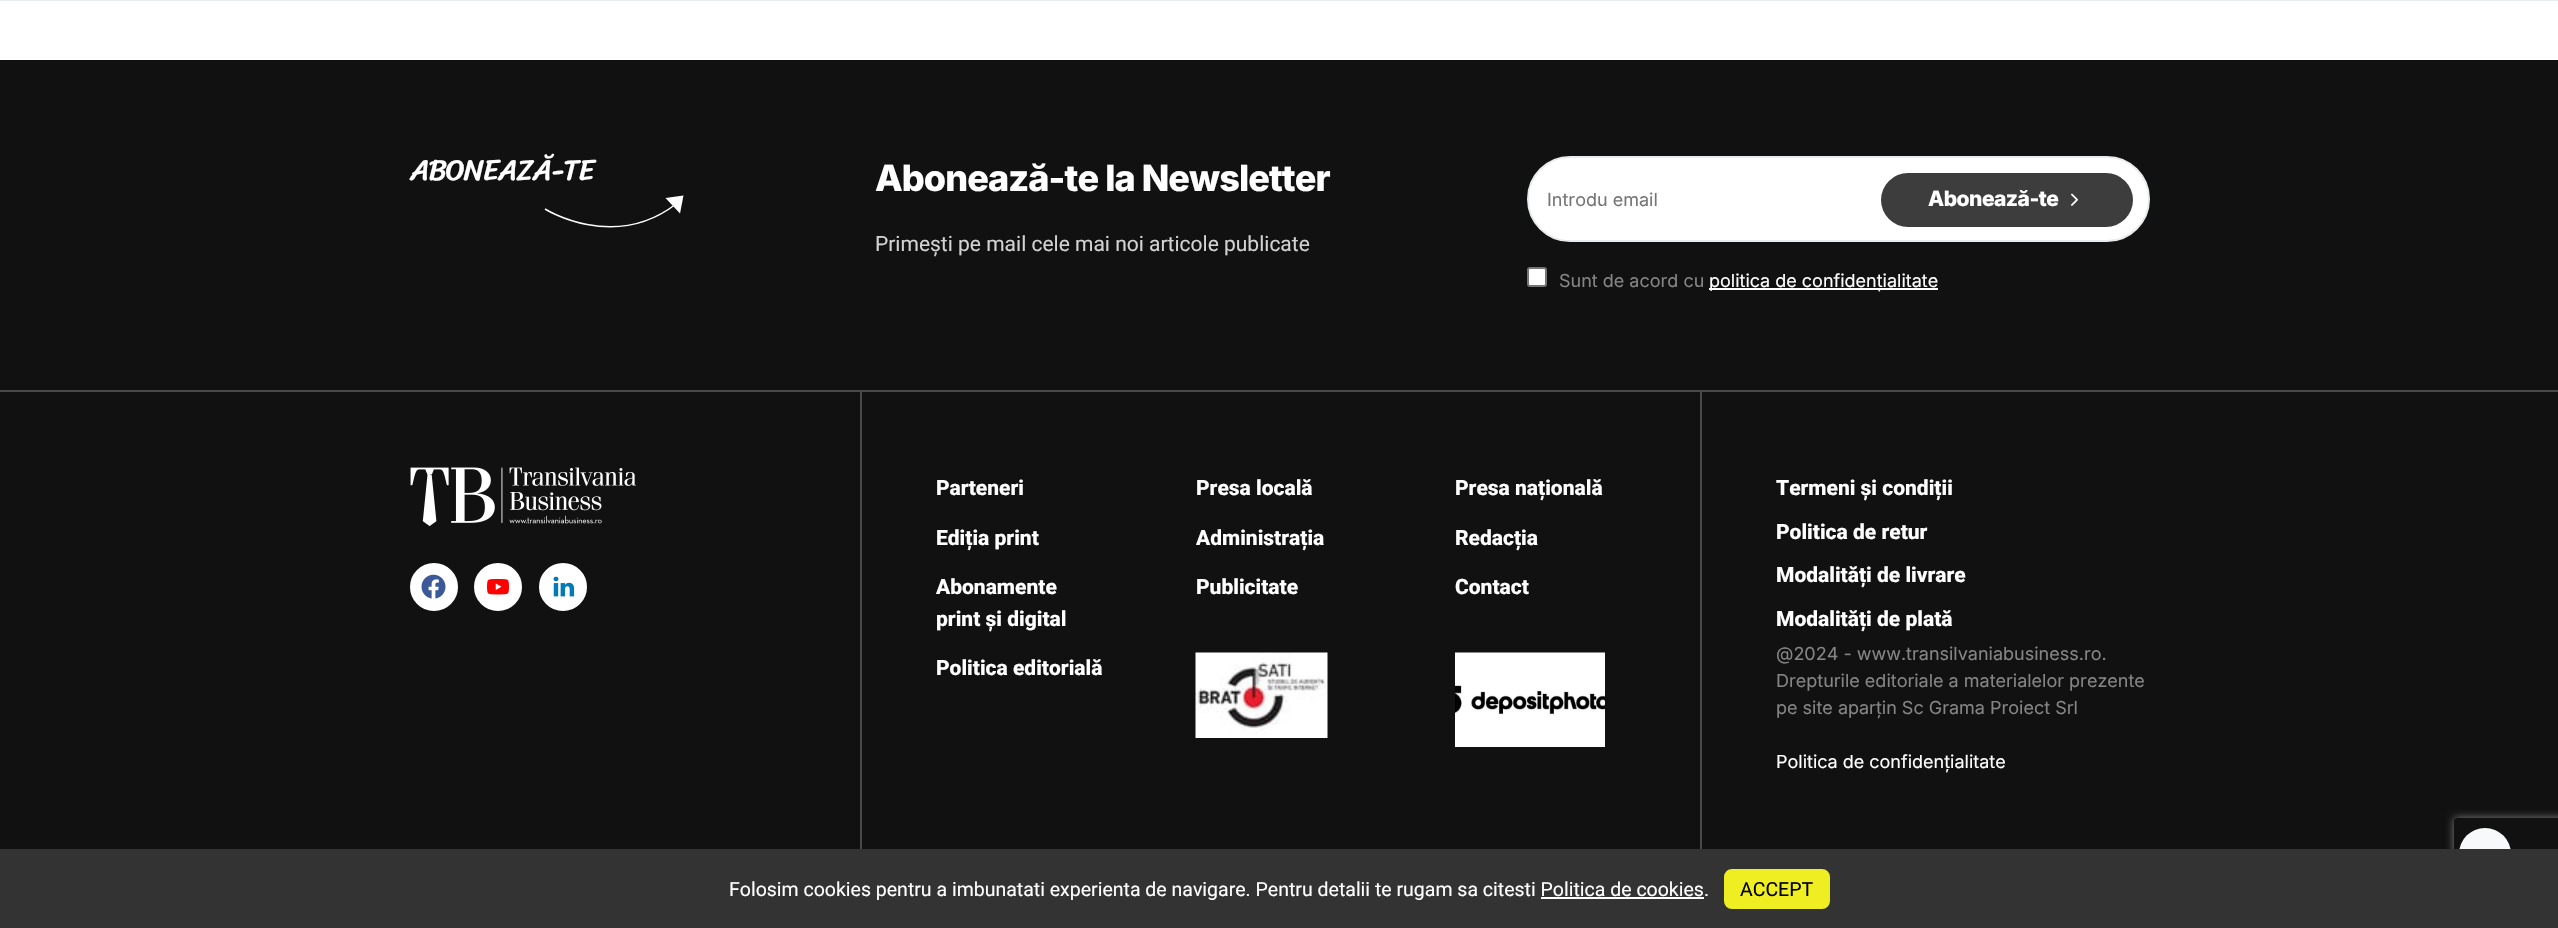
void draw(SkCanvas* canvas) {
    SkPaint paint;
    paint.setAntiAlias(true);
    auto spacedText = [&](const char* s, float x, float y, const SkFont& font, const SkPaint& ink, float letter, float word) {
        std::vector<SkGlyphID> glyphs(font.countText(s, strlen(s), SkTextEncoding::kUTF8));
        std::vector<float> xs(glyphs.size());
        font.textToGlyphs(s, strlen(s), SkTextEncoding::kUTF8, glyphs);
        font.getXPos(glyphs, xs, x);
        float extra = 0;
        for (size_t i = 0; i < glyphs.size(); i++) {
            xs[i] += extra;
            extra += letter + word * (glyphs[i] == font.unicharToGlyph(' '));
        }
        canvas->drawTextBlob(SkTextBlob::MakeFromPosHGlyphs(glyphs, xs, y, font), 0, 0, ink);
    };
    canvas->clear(0xFFFFFFFF);
    paint.setColor(0xFFE9ECEF);
    canvas->drawRect(SkRect::MakeXYWH(0, 0, 2558, 1), paint);
    paint.setColor(0xFF111111);
    canvas->drawRect(SkRect::MakeXYWH(0, 60, 2558, 789), paint);
    paint.setColor(0xFF494949);
    canvas->drawRect(SkRect::MakeXYWH(0, 390, 2558, 2), paint);
    SkFont font1(fontMgr->matchFamilyStyle("Sriracha", SkFontStyle::Normal()), 30);
    font1.setSubpixel(true);
    paint.setColor(0xFFFFFFFF);
    spacedText("ABONEAZĂ-TE", 410, 180, font1, paint, -1.5f, 0);
    paint.setStyle(SkPaint::kStroke_Style);
    paint.setStrokeWidth(1.5f);
    canvas->drawPath(SkPathBuilder().moveTo(545, 209).cubicTo(545, 209, 613.5f, 252, 676, 204).detach(), paint);
    paint.setStyle(SkPaint::kFill_Style);
    canvas->drawPath(SkPathBuilder().moveTo(683.5f, 195.5f).lineTo(680, 213.5f).lineTo(665.5f, 198).close().detach(), paint);
    SkFont font2(fontMgr->matchFamilyStyle("Inter", SkFontStyle(800, SkFontStyle::kNormal_Width, SkFontStyle::kUpright_Slant)), 36);
    font2.setSubpixel(true);
    spacedText("Abonează-te la Newsletter", 875, 191, font2, paint, -0.9f, 0);
    SkFont font3(fontMgr->matchFamilyStyle("Roboto", SkFontStyle::Normal()), 21);
    font3.setSubpixel(true);
    paint.setColor(0xFFD2D2D2);
    canvas->drawString("Primești pe mail cele mai noi articole publicate", 875, 251, font3, paint);
    paint.setColor(0xFFFFFFFF);
    canvas->drawRoundRect(SkRect::MakeXYWH(1528, 157, 621, 84), 42, 42, paint);
    paint.setStyle(SkPaint::kStroke_Style);
    paint.setStrokeWidth(2);
    paint.setColor(0xFFE9ECEF);
    canvas->drawRoundRect(SkRect::MakeXYWH(1528, 157, 621, 84), 42, 42, paint);
    paint.setStyle(SkPaint::kFill_Style);
    paint.setColor(0xFFFFFFFF);
    canvas->drawPath(SkPathBuilder().moveTo(1570, 158).lineTo(1881, 158).lineTo(1881, 240).lineTo(1570, 240).cubicTo(1547.5f, 240, 1529, 221.5f, 1529, 199).cubicTo(1529, 176.5f, 1547.5f, 158, 1570, 158).close().detach(), paint);
    SkFont font4(fontMgr->matchFamilyStyle("Inter", SkFontStyle::Normal()), 18);
    font4.setSubpixel(true);
    paint.setColor(0xFF757575);
    canvas->drawString("Introdu email", 1547, 206, font4, paint);
    paint.setColor(0xFF3D3D3D);
    canvas->drawRoundRect(SkRect::MakeXYWH(1881, 173, 252, 54), 27, 27, paint);
    SkFont font5(fontMgr->matchFamilyStyle("Inter", SkFontStyle(800, SkFontStyle::kNormal_Width, SkFontStyle::kUpright_Slant)), 21);
    font5.setSubpixel(true);
    paint.setColor(0xFFFFFFFF);
    spacedText("Abonează-te", 1928, 206, font5, paint, -0.5f, 0);
    canvas->drawImageRect(SkImages::DeferredFromEncodedData(SkData::MakeFromFileName("img1.png")), SkRect::MakeXYWH(2071, 193, 7, 13), SkSamplingOptions());
    canvas->drawRoundRect(SkRect::MakeXYWH(1528, 268, 18, 18), 2, 2, paint);
    paint.setStyle(SkPaint::kStroke_Style);
    paint.setColor(0xFF767676);
    canvas->drawRoundRect(SkRect::MakeXYWH(1528, 268, 18, 18), 2, 2, paint);
    paint.setStyle(SkPaint::kFill_Style);
    paint.setColor(0xFF858585);
    canvas->drawString("Sunt de acord cu", 1559, 287, font4, paint);
    paint.setColor(0xFFFFFFFF);
    canvas->drawRect(SkRect::MakeXYWH(1709, 288, 229, 2), paint);
    canvas->drawString("politica de confidențialitate", 1709, 287, font4, paint);
    canvas->drawImageRect(SkImages::DeferredFromEncodedData(SkData::MakeFromFileName("img2.png")), SkRect::MakeXYWH(410, 467, 226, 59), SkSamplingOptions());
    canvas->drawCircle(434, 587, 23, paint);
    paint.setStyle(SkPaint::kStroke_Style);
    canvas->drawCircle(434, 587, 23, paint);
    canvas->drawImageRect(SkImages::DeferredFromEncodedData(SkData::MakeFromFileName("img3.png")), SkRect::MakeXYWH(421, 574, 25, 25), SkSamplingOptions());
    paint.setStyle(SkPaint::kFill_Style);
    canvas->drawCircle(498, 587, 23, paint);
    paint.setStyle(SkPaint::kStroke_Style);
    canvas->drawCircle(498, 587, 23, paint);
    canvas->drawImageRect(SkImages::DeferredFromEncodedData(SkData::MakeFromFileName("img4.png")), SkRect::MakeXYWH(487, 578, 22, 17), SkSamplingOptions());
    paint.setStyle(SkPaint::kFill_Style);
    canvas->drawCircle(563, 587, 23, paint);
    paint.setStyle(SkPaint::kStroke_Style);
    canvas->drawCircle(563, 587, 23, paint);
    canvas->drawImageRect(SkImages::DeferredFromEncodedData(SkData::MakeFromFileName("img5.png")), SkRect::MakeXYWH(553, 576, 22, 21), SkSamplingOptions());
    paint.setStyle(SkPaint::kFill_Style);
    paint.setColor(0xFF494949);
    canvas->drawRect(SkRect::MakeXYWH(860, 392, 2, 459), paint);
    SkFont font6(fontMgr->matchFamilyStyle("Roboto", SkFontStyle(800, SkFontStyle::kNormal_Width, SkFontStyle::kUpright_Slant)), 21);
    font6.setSubpixel(true);
    paint.setColor(0xFFFFFFFF);
    canvas->drawString("Parteneri", 936, 495, font6, paint);
    canvas->drawString("Presa locală", 1196, 495, font6, paint);
    canvas->drawString("Presa națională", 1455, 495, font6, paint);
    canvas->drawString("Ediția print", 936, 545, font6, paint);
    canvas->drawString("Administrația", 1196, 545, font6, paint);
    canvas->drawString("Redacția", 1455, 545, font6, paint);
    canvas->drawString("Abonamente", 936, 594, font6, paint);
    canvas->drawString("print și digital", 936, 626, font6, paint);
    canvas->drawString("Publicitate", 1196, 594, font6, paint);
    canvas->drawString("Contact", 1455, 594, font6, paint);
    canvas->drawString("Politica editorială", 936, 675, font6, paint);
    canvas->drawImageRect(SkImages::DeferredFromEncodedData(SkData::MakeFromFileName("img6.png")), SkRect::MakeXYWH(1195, 652, 133, 86), SkSamplingOptions());
    canvas->drawImageRect(SkImages::DeferredFromEncodedData(SkData::MakeFromFileName("img7.png")), SkRect::MakeXYWH(1455, 652, 150, 95), SkSamplingOptions());
    paint.setColor(0xFF494949);
    canvas->drawRect(SkRect::MakeXYWH(1700, 392, 2, 459), paint);
    paint.setColor(0xFFFFFFFF);
    canvas->drawString("Termeni și condiții", 1776, 495, font6, paint);
    canvas->drawString("Politica de retur", 1776, 539, font6, paint);
    canvas->drawString("Modalități de livrare", 1776, 582, font6, paint);
    canvas->drawString("Modalități de plată", 1776, 626, font6, paint);
    paint.setColor(0xFF858585);
    canvas->drawString("@2024 - www.transilvaniabusiness.ro.", 1776, 660, font4, paint);
    canvas->drawString("Drepturile editoriale a materialelor prezente", 1776, 687, font4, paint);
    canvas->drawString("pe site aparțin Sc Grama Proiect Srl", 1776, 714, font4, paint);
    paint.setColor(0xFFFFFFFF);
    canvas->drawString("Politica de confidențialitate", 1776, 768, font4, paint);
    paint.setColor(0xFFF8F9FA);
    canvas->drawRoundRect(SkRect::MakeXYWH(2459, 828, 52, 53), 26, 26, paint);
    canvas->save();
    canvas->clipPath(SkPathBuilder(SkPathFillType::kEvenOdd).moveTo(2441, 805).lineTo(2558, 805).lineTo(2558, 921).lineTo(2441, 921).close().moveTo(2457, 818).lineTo(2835, 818).cubicTo(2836.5f, 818, 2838, 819.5f, 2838, 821).lineTo(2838, 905).cubicTo(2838, 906.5f, 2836.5f, 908, 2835, 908).lineTo(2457, 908).cubicTo(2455.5f, 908, 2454, 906.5f, 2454, 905).lineTo(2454, 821).cubicTo(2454, 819.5f, 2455.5f, 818, 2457, 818).close().detach(), true);
    paint.setColor(0xFF808080);
    paint.setMaskFilter(SkMaskFilter::MakeBlur(kNormal_SkBlurStyle, 4));
    canvas->drawRoundRect(SkRect::MakeXYWH(2454, 818, 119, 90), 3, 3, paint);
    paint.setMaskFilter(nullptr);
    canvas->restore();
    paint.setColor(0xFF333333);
    canvas->drawRect(SkRect::MakeXYWH(0, 849, 2558, 79), paint);
    SkFont font7(fontMgr->matchFamilyStyle("Roboto", SkFontStyle::Normal()), 19.5f);
    font7.setSubpixel(true);
    paint.setColor(0xFFFFFFFF);
    canvas->drawString("Folosim cookies pentru a imbunatati experienta de navigare. Pentru detalii te rugam sa citesti Politica de cookies.", 729, 896, font7, paint);
    canvas->drawRect(SkRect::MakeXYWH(1541, 897, 163, 2), paint);
    paint.setColor(0xFFEEEE22);
    canvas->drawRoundRect(SkRect::MakeXYWH(1725, 870, 104, 38), 7, 7, paint);
    paint.setStyle(SkPaint::kStroke_Style);
    canvas->drawRoundRect(SkRect::MakeXYWH(1725, 870, 104, 38), 7, 7, paint);
    paint.setStyle(SkPaint::kFill_Style);
    paint.setColor(0xFF000000);
    canvas->drawString("ACCEPT", 1740, 896, font7, paint);
}
